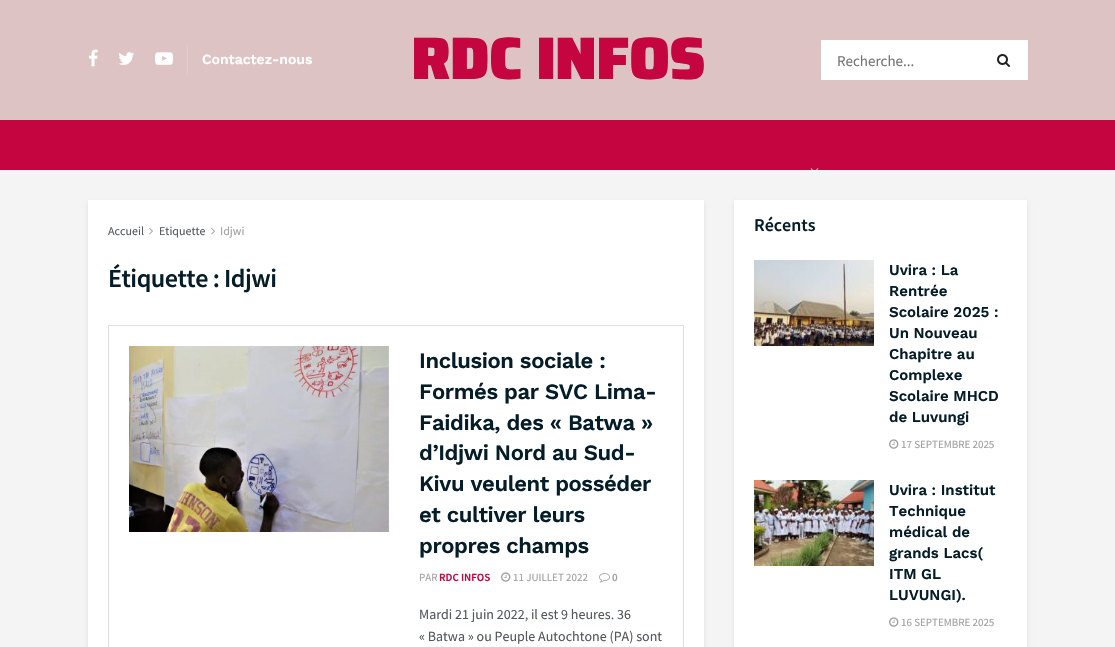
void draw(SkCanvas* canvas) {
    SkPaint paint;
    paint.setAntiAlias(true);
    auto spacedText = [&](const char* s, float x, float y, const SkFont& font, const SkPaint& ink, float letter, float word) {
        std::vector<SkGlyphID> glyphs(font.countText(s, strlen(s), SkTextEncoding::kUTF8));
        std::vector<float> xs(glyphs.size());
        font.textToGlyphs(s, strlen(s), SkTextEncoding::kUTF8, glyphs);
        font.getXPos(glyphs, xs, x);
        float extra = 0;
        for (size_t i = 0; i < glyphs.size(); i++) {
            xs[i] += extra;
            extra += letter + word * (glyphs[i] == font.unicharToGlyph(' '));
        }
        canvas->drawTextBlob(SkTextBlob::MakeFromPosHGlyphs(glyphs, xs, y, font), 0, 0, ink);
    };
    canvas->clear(0xFFF4F4F4);
    paint.setColor(0xFFDDC3C3);
    canvas->drawRect(SkRect::MakeXYWH(0, 0, 1115, 120), paint);
    canvas->drawImageRect(SkImages::DeferredFromEncodedData(SkData::MakeFromFileName("img1.png")), SkRect::MakeXYWH(89, 49, 9, 18), SkSamplingOptions());
    canvas->drawImageRect(SkImages::DeferredFromEncodedData(SkData::MakeFromFileName("img2.png")), SkRect::MakeXYWH(118, 52, 16, 13), SkSamplingOptions());
    canvas->drawImageRect(SkImages::DeferredFromEncodedData(SkData::MakeFromFileName("img3.png")), SkRect::MakeXYWH(155, 52, 18, 13), SkSamplingOptions());
    paint.setColor(0xFFE2CCCC);
    canvas->drawRect(SkRect::MakeXYWH(187, 45, 1, 30), paint);
    SkFont font1(fontMgr->matchFamilyStyle("Work Sans", SkFontStyle(600, SkFontStyle::kNormal_Width, SkFontStyle::kUpright_Slant)), 14);
    font1.setSubpixel(true);
    paint.setColor(0xFFFFFFFF);
    canvas->drawString("Contactez-nous", 202, 64, font1, paint);
    SkFont font2(fontMgr->matchFamilyStyle("Saira", SkFontStyle(100, SkFontStyle::kNormal_Width, SkFontStyle::kUpright_Slant)), 60);
    font2.setSubpixel(true);
    paint.setColor(0xFFC4053F);
    spacedText("RDC INFOS", 411, 79, font2, paint, -1.25f, 0);
    paint.setColor(0xFFFFFFFF);
    canvas->drawRect(SkRect::MakeXYWH(821, 40, 207, 40), paint);
    SkFont font3(fontMgr->matchFamilyStyle("Source Sans Pro", SkFontStyle::Normal()), 15);
    font3.setSubpixel(true);
    paint.setColor(0xFF757575);
    canvas->drawString("Recherche...", 837, 66, font3, paint);
    canvas->drawImageRect(SkImages::DeferredFromEncodedData(SkData::MakeFromFileName("img4.png")), SkRect::MakeXYWH(997, 54, 13, 13), SkSamplingOptions());
    paint.setColor(0xFFC4053F);
    canvas->drawRect(SkRect::MakeXYWH(0, 120, 1115, 50), paint);
    canvas->drawImageRect(SkImages::DeferredFromEncodedData(SkData::MakeFromFileName("img5.png")), SkRect::MakeXYWH(810, 168, 9, 4), SkSamplingOptions());
    paint.setColor(0x14000000);
    paint.setMaskFilter(SkMaskFilter::MakeBlur(kNormal_SkBlurStyle, 2));
    canvas->drawRect(SkRect::MakeXYWH(88, 202, 616, 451), paint);
    paint.setMaskFilter(nullptr);
    paint.setColor(0xFFFFFFFF);
    canvas->drawRect(SkRect::MakeXYWH(88, 200, 616, 447), paint);
    SkFont font4(fontMgr->matchFamilyStyle("Source Sans Pro", SkFontStyle::Normal()), 12);
    font4.setSubpixel(true);
    paint.setColor(0xFF53585C);
    canvas->drawString("Accueil", 108, 235, font4, paint);
    canvas->drawImageRect(SkImages::DeferredFromEncodedData(SkData::MakeFromFileName("img6.png")), SkRect::MakeXYWH(149, 227, 4, 8), SkSamplingOptions());
    canvas->drawString("Etiquette", 159, 235, font4, paint);
    canvas->drawImageRect(SkImages::DeferredFromEncodedData(SkData::MakeFromFileName("img6.png")), SkRect::MakeXYWH(211, 227, 4, 8), SkSamplingOptions());
    paint.setColor(0xFFA0A0A0);
    canvas->drawString("Idjwi", 220, 235, font4, paint);
    SkFont font5(fontMgr->matchFamilyStyle("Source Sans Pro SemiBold", SkFontStyle(600, SkFontStyle::kNormal_Width, SkFontStyle::kUpright_Slant)), 26);
    font5.setSubpixel(true);
    paint.setColor(0xFF041D28);
    spacedText("Étiquette : Idjwi", 108, 287, font5, paint, -0.5f, 0);
    paint.setStyle(SkPaint::kStroke_Style);
    paint.setStrokeWidth(1);
    paint.setColor(0xFFE0E0E0);
    canvas->drawRect(SkRect::MakeXYWH(108.5f, 325.5f, 575, 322), paint);
    canvas->drawImageRect(SkImages::DeferredFromEncodedData(SkData::MakeFromFileName("img7.png")), SkRect::MakeXYWH(129, 346, 260, 186), SkSamplingOptions());
    SkFont font6(fontMgr->matchFamilyStyle("Work Sans", SkFontStyle(600, SkFontStyle::kNormal_Width, SkFontStyle::kUpright_Slant)), 22);
    font6.setSubpixel(true);
    paint.setStyle(SkPaint::kFill_Style);
    paint.setColor(0xFF041D28);
    spacedText("Inclusion sociale :", 419, 368, font6, paint, -0.4f, 0);
    spacedText("Formés par SVC Lima-", 419, 399, font6, paint, -0.4f, 0);
    spacedText("Faidika, des « Batwa »", 419, 430, font6, paint, -0.4f, 0);
    spacedText("d’Idjwi Nord au Sud-", 419, 460, font6, paint, -0.4f, 0);
    spacedText("Kivu veulent posséder", 419, 491, font6, paint, -0.4f, 0);
    spacedText("et cultiver leurs", 419, 522, font6, paint, -0.4f, 0);
    spacedText("propres champs", 419, 553, font6, paint, -0.4f, 0);
    SkFont font7(fontMgr->matchFamilyStyle("Source Sans Pro", SkFontStyle::Normal()), 11);
    font7.setSubpixel(true);
    paint.setColor(0xFFA0A0A0);
    canvas->drawString("PAR", 419, 581, font7, paint);
    SkFont font8(fontMgr->matchFamilyStyle("Source Sans Pro SemiBold", SkFontStyle(600, SkFontStyle::kNormal_Width, SkFontStyle::kUpright_Slant)), 11);
    font8.setSubpixel(true);
    paint.setColor(0xFFC4053F);
    canvas->drawString("RDC INFOS", 439, 581, font8, paint);
    canvas->drawImageRect(SkImages::DeferredFromEncodedData(SkData::MakeFromFileName("img8.png")), SkRect::MakeXYWH(501, 572, 10, 10), SkSamplingOptions());
    paint.setColor(0xFFA0A0A0);
    canvas->drawString("11 JUILLET 2022", 513, 581, font7, paint);
    canvas->drawImageRect(SkImages::DeferredFromEncodedData(SkData::MakeFromFileName("img9.png")), SkRect::MakeXYWH(599, 573, 11, 10), SkSamplingOptions());
    canvas->drawString("0", 612, 581, font8, paint);
    SkFont font9(fontMgr->matchFamilyStyle("Source Sans Pro", SkFontStyle::Normal()), 14);
    font9.setSubpixel(true);
    paint.setColor(0xFF53585C);
    canvas->drawString("Mardi 21 juin 2022, il est 9 heures. 36", 419, 619, font9, paint);
    canvas->drawString("« Batwa » ou Peuple Autochtone (PA) sont", 419, 641, font9, paint);
    paint.setColor(0x14000000);
    paint.setMaskFilter(SkMaskFilter::MakeBlur(kNormal_SkBlurStyle, 2));
    canvas->drawRect(SkRect::MakeXYWH(734, 202, 293, 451), paint);
    paint.setMaskFilter(nullptr);
    paint.setColor(0xFFFFFFFF);
    canvas->drawRect(SkRect::MakeXYWH(734, 200, 293, 447), paint);
    SkFont font10(fontMgr->matchFamilyStyle("Source Sans Pro SemiBold", SkFontStyle(600, SkFontStyle::kNormal_Width, SkFontStyle::kUpright_Slant)), 18);
    font10.setSubpixel(true);
    paint.setColor(0xFF041D28);
    canvas->drawString("Récents", 754, 231, font10, paint);
    canvas->drawImageRect(SkImages::DeferredFromEncodedData(SkData::MakeFromFileName("img10.png")), SkRect::MakeXYWH(754, 260, 120, 86), SkSamplingOptions());
    SkFont font11(fontMgr->matchFamilyStyle("Work Sans", SkFontStyle(600, SkFontStyle::kNormal_Width, SkFontStyle::kUpright_Slant)), 15);
    font11.setSubpixel(true);
    canvas->drawString("Uvira : La", 889, 275, font11, paint);
    canvas->drawString("Rentrée", 889, 296, font11, paint);
    canvas->drawString("Scolaire 2025 :", 889, 317, font11, paint);
    canvas->drawString("Un Nouveau", 889, 338, font11, paint);
    canvas->drawString("Chapitre au", 889, 359, font11, paint);
    canvas->drawString("Complexe", 889, 380, font11, paint);
    canvas->drawString("Scolaire MHCD", 889, 401, font11, paint);
    canvas->drawString("de Luvungi", 889, 422, font11, paint);
    canvas->drawImageRect(SkImages::DeferredFromEncodedData(SkData::MakeFromFileName("img8.png")), SkRect::MakeXYWH(889, 439, 10, 10), SkSamplingOptions());
    paint.setColor(0xFFA0A0A0);
    canvas->drawString("17 SEPTEMBRE 2025", 901, 448, font7, paint);
    canvas->drawImageRect(SkImages::DeferredFromEncodedData(SkData::MakeFromFileName("img11.png")), SkRect::MakeXYWH(754, 480, 120, 86), SkSamplingOptions());
    paint.setColor(0xFF041D28);
    canvas->drawString("Uvira : Institut", 889, 495, font11, paint);
    canvas->drawString("Technique", 889, 516, font11, paint);
    canvas->drawString("médical de", 889, 537, font11, paint);
    canvas->drawString("grands Lacs(", 889, 558, font11, paint);
    canvas->drawString("ITM GL", 889, 579, font11, paint);
    canvas->drawString("LUVUNGI).", 889, 600, font11, paint);
    canvas->drawImageRect(SkImages::DeferredFromEncodedData(SkData::MakeFromFileName("img8.png")), SkRect::MakeXYWH(889, 617, 10, 10), SkSamplingOptions());
    paint.setColor(0xFFA0A0A0);
    canvas->drawString("16 SEPTEMBRE 2025", 901, 626, font7, paint);
}
